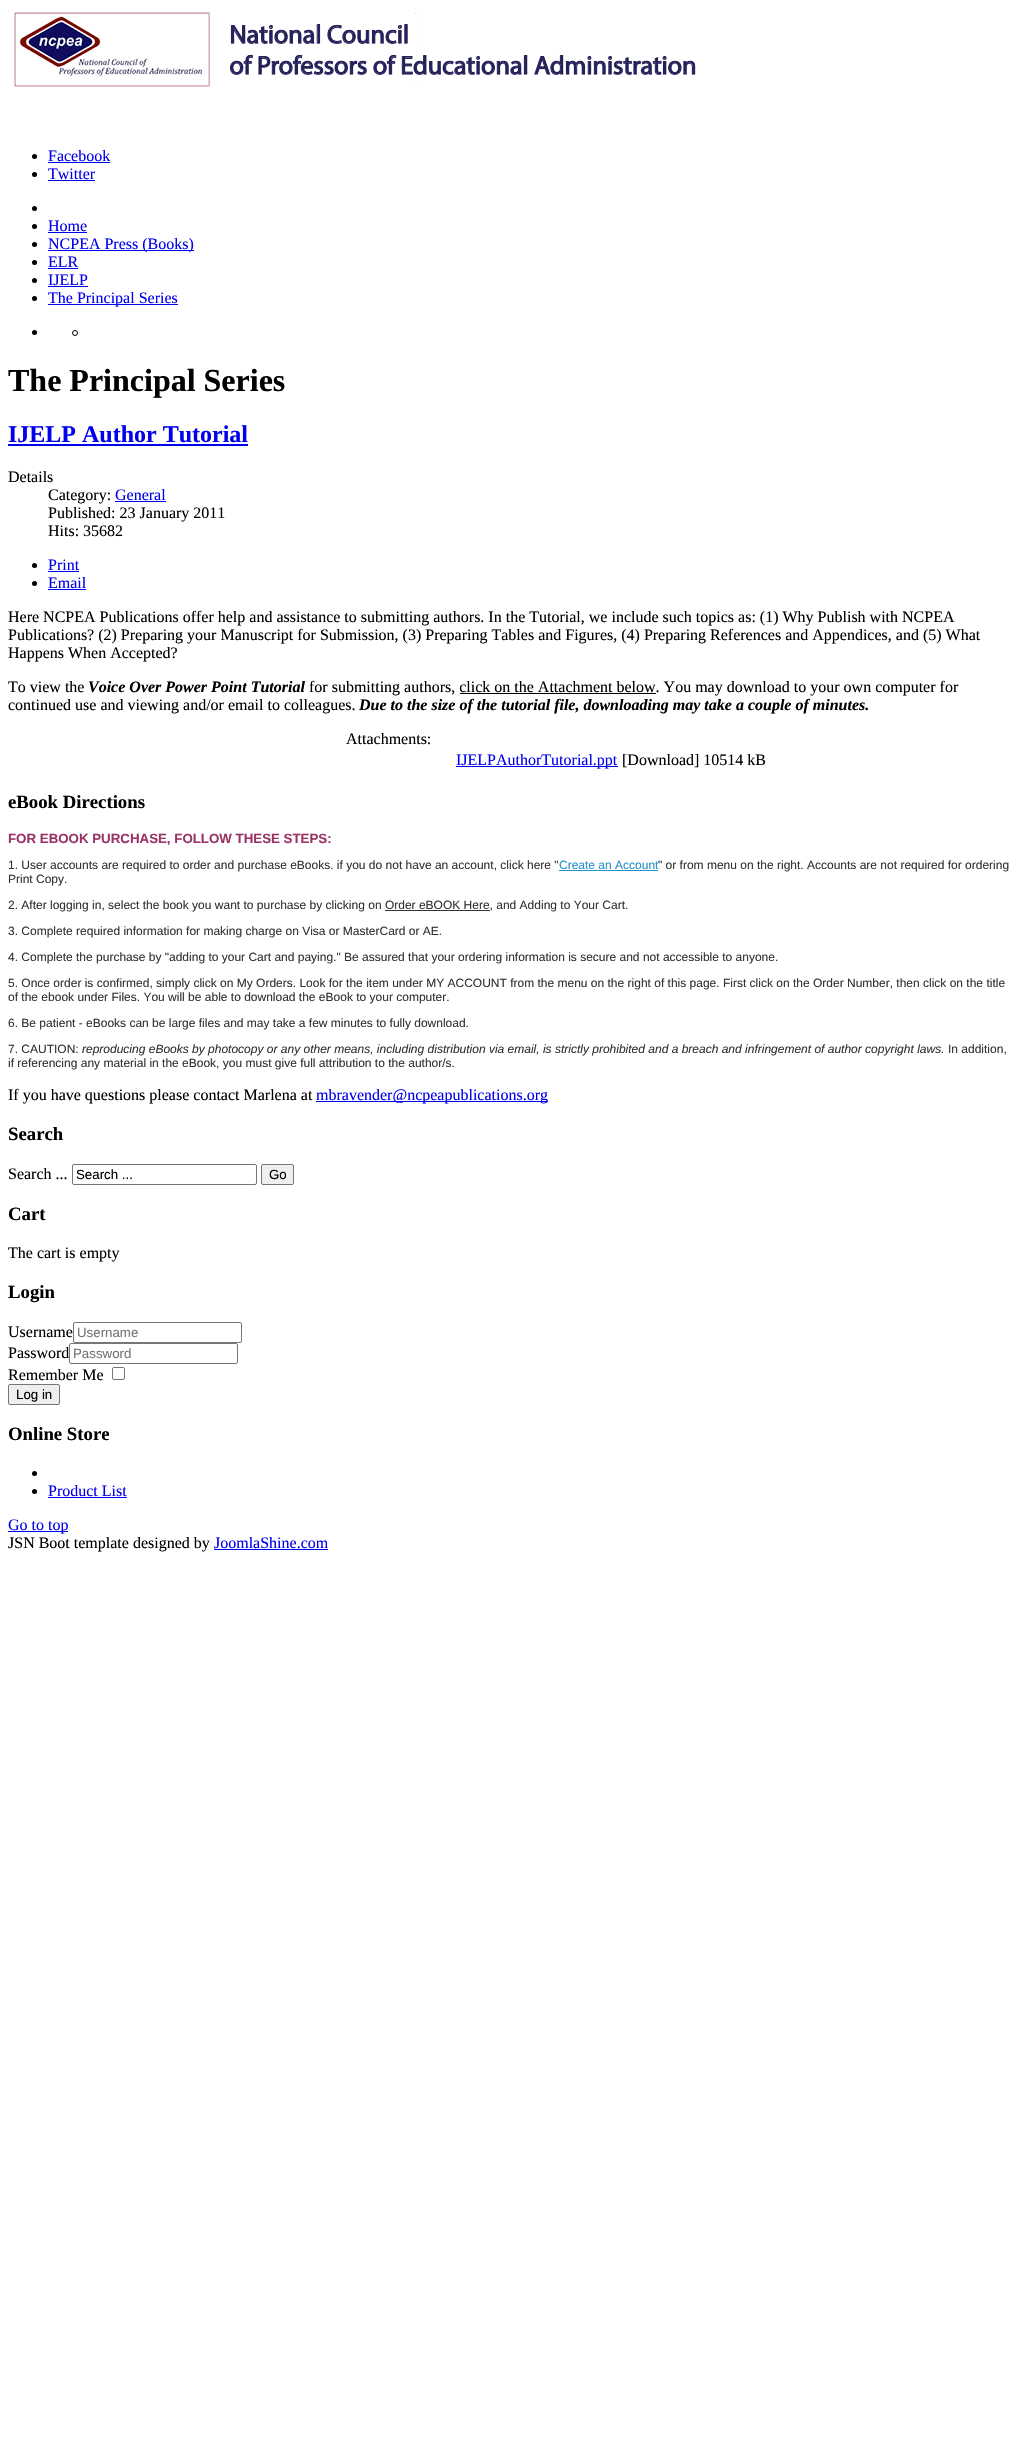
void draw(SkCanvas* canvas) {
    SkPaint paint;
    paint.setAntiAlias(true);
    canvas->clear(0xFFFFFFFF);
    canvas->drawImageRect(SkImages::DeferredFromEncodedData(SkData::MakeFromFileName("img1.png")), SkRect::MakeXYWH(14, 12, 682, 75), SkSamplingOptions());
    paint.setColor(0xFF000000);
    canvas->drawCircle(34.5f, 156.5f, 2.5f, paint);
    SkFont font1(fontMgr->matchFamilyStyle("Liberation Serif", SkFontStyle::Normal()), 16);
    font1.setSubpixel(true);
    paint.setColor(0xFF0000EE);
    canvas->drawString("Facebook", 48, 161, font1, paint);
    canvas->drawRect(SkRect::MakeXYWH(48, 162, 62, 1), paint);
    paint.setColor(0xFF000000);
    canvas->drawCircle(34.5f, 174.5f, 2.5f, paint);
    paint.setColor(0xFF0000EE);
    canvas->drawString("Twitter", 48, 179, font1, paint);
    canvas->drawRect(SkRect::MakeXYWH(48, 180, 47, 1), paint);
    paint.setColor(0xFF000000);
    canvas->drawCircle(34.5f, 208.5f, 2.5f, paint);
    canvas->drawCircle(34.5f, 226.5f, 2.5f, paint);
    paint.setColor(0xFF0000EE);
    canvas->drawString("Home", 48, 231, font1, paint);
    canvas->drawRect(SkRect::MakeXYWH(48, 232, 39, 1), paint);
    paint.setColor(0xFF000000);
    canvas->drawCircle(34.5f, 244.5f, 2.5f, paint);
    paint.setColor(0xFF0000EE);
    canvas->drawRect(SkRect::MakeXYWH(48, 250, 146, 1), paint);
    canvas->drawString("NCPEA Press (Books)", 48, 249, font1, paint);
    paint.setColor(0xFF000000);
    canvas->drawCircle(34.5f, 262.5f, 2.5f, paint);
    paint.setColor(0xFF0000EE);
    canvas->drawString("ELR", 48, 267, font1, paint);
    canvas->drawRect(SkRect::MakeXYWH(48, 268, 30, 1), paint);
    paint.setColor(0xFF000000);
    canvas->drawCircle(34.5f, 280.5f, 2.5f, paint);
    paint.setColor(0xFF0000EE);
    canvas->drawString("IJELP", 48, 285, font1, paint);
    canvas->drawRect(SkRect::MakeXYWH(48, 286, 40, 1), paint);
    paint.setColor(0xFF000000);
    canvas->drawCircle(34.5f, 298.5f, 2.5f, paint);
    paint.setColor(0xFF0000EE);
    canvas->drawRect(SkRect::MakeXYWH(48, 304, 130, 1), paint);
    canvas->drawString("The Principal Series", 48, 303, font1, paint);
    paint.setColor(0xFF000000);
    canvas->drawCircle(34.5f, 332.5f, 2.5f, paint);
    paint.setStyle(SkPaint::kStroke_Style);
    paint.setStrokeWidth(1);
    canvas->drawCircle(75, 333, 2.5f, paint);
    SkFont font2(fontMgr->matchFamilyStyle("Liberation Serif", SkFontStyle::Bold()), 32);
    font2.setSubpixel(true);
    paint.setStyle(SkPaint::kFill_Style);
    canvas->drawString("The Principal Series", 8, 391, font2, paint);
    SkFont font3(fontMgr->matchFamilyStyle("Liberation Serif", SkFontStyle::Bold()), 24);
    font3.setSubpixel(true);
    paint.setColor(0xFF0000EE);
    canvas->drawString("IJELP Author Tutorial", 8, 442, font3, paint);
    canvas->drawRect(SkRect::MakeXYWH(8, 444, 240, 2), paint);
    paint.setColor(0xFF000000);
    canvas->drawString("Details", 8, 482, font1, paint);
    canvas->drawString("Category:", 48, 500, font1, paint);
    paint.setColor(0xFF0000EE);
    canvas->drawString("General", 115, 500, font1, paint);
    canvas->drawRect(SkRect::MakeXYWH(115, 501, 51, 1), paint);
    paint.setColor(0xFF000000);
    canvas->drawString("Published: 23 January 2011", 48, 518, font1, paint);
    canvas->drawString("Hits: 35682", 48, 536, font1, paint);
    canvas->drawCircle(34.5f, 565.5f, 2.5f, paint);
    paint.setColor(0xFF0000EE);
    canvas->drawString("Print", 48, 570, font1, paint);
    canvas->drawRect(SkRect::MakeXYWH(48, 571, 31, 1), paint);
    paint.setColor(0xFF000000);
    canvas->drawCircle(34.5f, 583.5f, 2.5f, paint);
    paint.setColor(0xFF0000EE);
    canvas->drawString("Email", 48, 588, font1, paint);
    canvas->drawRect(SkRect::MakeXYWH(48, 589, 38, 1), paint);
    paint.setColor(0xFF000000);
    canvas->drawString("Here NCPEA Publications offer help and assistance to submitting authors. In the Tutorial, we include such topics as: (1) Why Publish with NCPEA", 8, 622, font1, paint);
    canvas->drawString("Publications? (2) Preparing your Manuscript for Submission, (3) Preparing Tables and Figures, (4) Preparing References and Appendices, and (5) What", 8, 640, font1, paint);
    canvas->drawString("Happens When Accepted?", 8, 658, font1, paint);
    canvas->drawString("To view the", 8, 692, font1, paint);
    SkFont font4(fontMgr->matchFamilyStyle("Liberation Serif", SkFontStyle::BoldItalic()), 16);
    font4.setSubpixel(true);
    canvas->drawString("Voice Over Power Point Tutorial", 88, 692, font4, paint);
    canvas->drawString("for submitting authors, click on the Attachment below. You may download to your own computer for", 309, 692, font1, paint);
    canvas->drawRect(SkRect::MakeXYWH(460, 693, 196, 1), paint);
    canvas->drawString("continued use and viewing and/or email to colleagues.", 8, 710, font1, paint);
    canvas->drawString("Due to the size of the tutorial file, downloading may take a couple of minutes.", 359, 710, font4, paint);
    canvas->drawString("Attachments:", 346, 744, font1, paint);
    paint.setColor(0xFF0000EE);
    canvas->drawRect(SkRect::MakeXYWH(456, 766, 162, 1), paint);
    canvas->drawString("IJELPAuthorTutorial.ppt", 456, 765, font1, paint);
    paint.setColor(0xFF000000);
    canvas->drawString("[Download] 10514 kB", 622, 765, font1, paint);
    SkFont font5(fontMgr->matchFamilyStyle("Liberation Serif", SkFontStyle::Bold()), 18.75f);
    font5.setSubpixel(true);
    canvas->drawString("eBook Directions", 8, 808, font5, paint);
    SkFont font6(fontMgr->matchFamilyStyle("Liberation Sans", SkFontStyle::Bold()), 13.3f);
    font6.setSubpixel(true);
    paint.setColor(0xFF993366);
    canvas->drawString("FOR EBOOK PURCHASE, FOLLOW THESE STEPS:", 8, 843, font6, paint);
    SkFont font7(fontMgr->matchFamilyStyle("Liberation Sans", SkFontStyle::Normal()), 12);
    font7.setSubpixel(true);
    paint.setColor(0xFF333333);
    canvas->drawString("1. User accounts are required to order and purchase eBooks. if you do not have an account, click here \"", 8, 869, font7, paint);
    paint.setColor(0xFF2491CA);
    canvas->drawString("Create an Account", 559, 869, font7, paint);
    canvas->drawRect(SkRect::MakeXYWH(559, 870, 99, 1), paint);
    paint.setColor(0xFF333333);
    canvas->drawString("\" or from menu on the right. Accounts are not required for ordering", 658, 869, font7, paint);
    canvas->drawString("Print Copy.", 8, 883, font7, paint);
    canvas->drawString("2. After logging in, select the book you want to purchase by clicking on Order eBOOK Here, and Adding to Your Cart.", 8, 909, font7, paint);
    canvas->drawRect(SkRect::MakeXYWH(385, 910, 105, 1), paint);
    canvas->drawString("3. Complete required information for making charge on Visa or MasterCard or AE.", 8, 935, font7, paint);
    canvas->drawString("4. Complete the purchase by \"adding to your Cart and paying.\" Be assured that your ordering information is secure and not accessible to anyone.", 8, 961, font7, paint);
    canvas->drawString("5. Once order is confirmed, simply click on My Orders. Look for the item under MY ACCOUNT from the menu on the right of this page. First click on the Order Number, then click on the title", 8, 987, font7, paint);
    canvas->drawString("of the ebook under Files. You will be able to download the eBook to your computer.", 8, 1001, font7, paint);
    canvas->drawString("6. Be patient - eBooks can be large files and may take a few minutes to fully download.", 8, 1027, font7, paint);
    canvas->drawString("7. CAUTION:", 8, 1053, font7, paint);
    SkFont font8(fontMgr->matchFamilyStyle("Liberation Sans", SkFontStyle::Italic()), 12);
    font8.setSubpixel(true);
    canvas->drawString("reproducing eBooks by photocopy or any other means, including distribution via email, is strictly prohibited and a breach and infringement of author copyright laws.", 82, 1053, font8, paint);
    canvas->drawString("In addition,", 948, 1053, font7, paint);
    canvas->drawString("if referencing any material in the eBook, you must give full attribution to the author/s.", 8, 1067, font7, paint);
    paint.setColor(0xFF000000);
    canvas->drawString("If you have questions please contact Marlena at", 8, 1100, font1, paint);
    paint.setColor(0xFF0000EE);
    canvas->drawRect(SkRect::MakeXYWH(316, 1101, 232, 1), paint);
    canvas->drawString("mbravender@ncpeapublications.org", 316, 1100, font1, paint);
    paint.setColor(0xFF000000);
    canvas->drawString("Search", 8, 1140, font5, paint);
    canvas->drawString("Search ...", 8, 1179, font1, paint);
    paint.setStyle(SkPaint::kStroke_Style);
    paint.setColor(0xFF767676);
    canvas->drawRoundRect(SkRect::MakeXYWH(72.5f, 1164.5f, 184, 20), 1.5f, 1.5f, paint);
    SkFont font9(fontMgr->matchFamilyStyle("Liberation Sans", SkFontStyle::Normal()), 13.3f);
    font9.setSubpixel(true);
    paint.setStyle(SkPaint::kFill_Style);
    paint.setColor(0xFF000000);
    canvas->drawString("Search ...", 76, 1179, font9, paint);
    paint.setColor(0xFFEFEFEF);
    canvas->drawRoundRect(SkRect::MakeXYWH(261.5f, 1164.5f, 32, 20), 1.5f, 1.5f, paint);
    paint.setStyle(SkPaint::kStroke_Style);
    paint.setColor(0xFF767676);
    canvas->drawRoundRect(SkRect::MakeXYWH(261.5f, 1164.5f, 32, 20), 1.5f, 1.5f, paint);
    paint.setStyle(SkPaint::kFill_Style);
    paint.setColor(0xFF000000);
    canvas->drawString("Go", 269, 1179, font9, paint);
    canvas->drawString("Cart", 8, 1220, font5, paint);
    canvas->drawString("The cart is empty", 8, 1258, font1, paint);
    canvas->drawString("Login", 8, 1298, font5, paint);
    canvas->drawString("Username", 8, 1337, font1, paint);
    paint.setStyle(SkPaint::kStroke_Style);
    paint.setColor(0xFF767676);
    canvas->drawRoundRect(SkRect::MakeXYWH(73.5f, 1322.5f, 168, 20), 1.5f, 1.5f, paint);
    paint.setStyle(SkPaint::kFill_Style);
    paint.setColor(0xFF757575);
    canvas->drawString("Username", 77, 1337, font9, paint);
    paint.setColor(0xFF000000);
    canvas->drawString("Password", 8, 1358, font1, paint);
    paint.setColor(0xFFFFFFFF);
    canvas->drawRoundRect(SkRect::MakeXYWH(69.5f, 1343.5f, 168, 20), 1.5f, 1.5f, paint);
    paint.setStyle(SkPaint::kStroke_Style);
    paint.setColor(0xFF767676);
    canvas->drawRoundRect(SkRect::MakeXYWH(69.5f, 1343.5f, 168, 20), 1.5f, 1.5f, paint);
    paint.setStyle(SkPaint::kFill_Style);
    paint.setColor(0xFF757575);
    canvas->drawString("Password", 73, 1358, font9, paint);
    paint.setColor(0xFF000000);
    canvas->drawString("Remember Me", 8, 1380, font1, paint);
    paint.setStyle(SkPaint::kStroke_Style);
    paint.setColor(0xFF767676);
    canvas->drawRoundRect(SkRect::MakeXYWH(112.5f, 1367.5f, 12, 12), 1.5f, 1.5f, paint);
    paint.setStyle(SkPaint::kFill_Style);
    paint.setColor(0xFFEFEFEF);
    canvas->drawRoundRect(SkRect::MakeXYWH(8.5f, 1384.5f, 51, 20), 1.5f, 1.5f, paint);
    paint.setStyle(SkPaint::kStroke_Style);
    paint.setColor(0xFF767676);
    canvas->drawRoundRect(SkRect::MakeXYWH(8.5f, 1384.5f, 51, 20), 1.5f, 1.5f, paint);
    paint.setStyle(SkPaint::kFill_Style);
    paint.setColor(0xFF000000);
    canvas->drawString("Log in", 16, 1399, font9, paint);
    canvas->drawString("Online Store", 8, 1440, font5, paint);
    canvas->drawCircle(34.5f, 1473.5f, 2.5f, paint);
    canvas->drawCircle(34.5f, 1491.5f, 2.5f, paint);
    paint.setColor(0xFF0000EE);
    canvas->drawString("Product List", 48, 1496, font1, paint);
    canvas->drawRect(SkRect::MakeXYWH(48, 1497, 79, 1), paint);
    canvas->drawRect(SkRect::MakeXYWH(8, 1531, 60, 1), paint);
    canvas->drawString("Go to top", 8, 1530, font1, paint);
    paint.setColor(0xFF000000);
    canvas->drawString("JSN Boot template designed by", 8, 1548, font1, paint);
    paint.setColor(0xFF0000EE);
    canvas->drawString("JoomlaShine.com", 214, 1548, font1, paint);
    canvas->drawRect(SkRect::MakeXYWH(214, 1549, 114, 1), paint);
}
